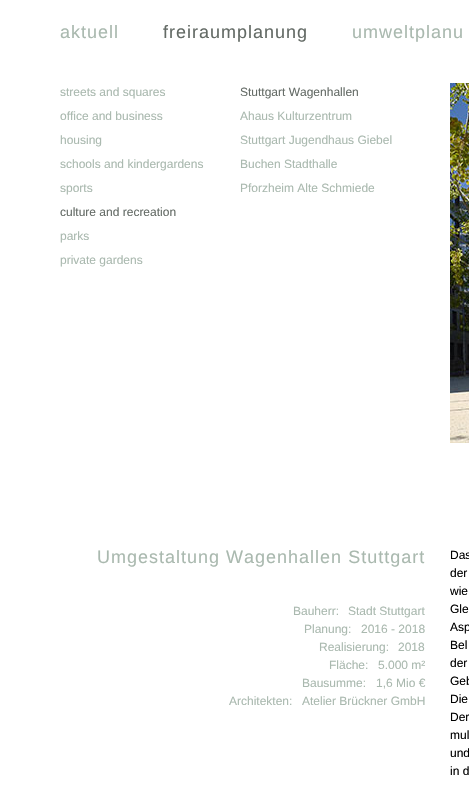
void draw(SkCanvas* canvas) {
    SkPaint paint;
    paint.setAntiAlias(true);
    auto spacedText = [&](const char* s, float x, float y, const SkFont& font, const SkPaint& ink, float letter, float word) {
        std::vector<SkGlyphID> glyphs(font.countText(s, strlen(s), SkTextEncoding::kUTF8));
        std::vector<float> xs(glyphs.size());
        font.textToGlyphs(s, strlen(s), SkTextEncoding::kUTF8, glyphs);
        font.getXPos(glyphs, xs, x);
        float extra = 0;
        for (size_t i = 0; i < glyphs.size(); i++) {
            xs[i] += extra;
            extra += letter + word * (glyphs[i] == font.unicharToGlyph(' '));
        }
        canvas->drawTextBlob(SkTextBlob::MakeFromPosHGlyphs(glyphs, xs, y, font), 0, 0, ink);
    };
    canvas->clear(0xFFFFFFFF);
    SkFont font1(fontMgr->matchFamilyStyle("Liberation Sans", SkFontStyle::Normal()), 18);
    font1.setSubpixel(true);
    paint.setColor(0xFFAAB9AF);
    spacedText("aktuell", 60, 38, font1, paint, 1, 0);
    paint.setColor(0xFF646B66);
    spacedText("freiraumplanung", 163, 38, font1, paint, 1, 0);
    paint.setColor(0xFFAAB9AF);
    spacedText("umweltplanu", 352, 38, font1, paint, 1, 0);
    SkFont font2(fontMgr->matchFamilyStyle("Liberation Sans", SkFontStyle::Normal()), 12);
    font2.setSubpixel(true);
    canvas->drawString("streets and squares", 60, 96, font2, paint);
    canvas->drawString("office and business", 60, 120, font2, paint);
    canvas->drawString("housing", 60, 144, font2, paint);
    canvas->drawString("schools and kindergardens", 60, 168, font2, paint);
    canvas->drawString("sports", 60, 192, font2, paint);
    paint.setColor(0xFF646B66);
    canvas->drawString("culture and recreation", 60, 216, font2, paint);
    paint.setColor(0xFFAAB9AF);
    canvas->drawString("parks", 60, 240, font2, paint);
    canvas->drawString("private gardens", 60, 264, font2, paint);
    paint.setColor(0xFF646B66);
    canvas->drawString("Stuttgart Wagenhallen", 240, 96, font2, paint);
    paint.setColor(0xFFAAB9AF);
    canvas->drawString("Ahaus Kulturzentrum", 240, 120, font2, paint);
    canvas->drawString("Stuttgart Jugendhaus Giebel", 240, 144, font2, paint);
    canvas->drawString("Buchen Stadthalle", 240, 168, font2, paint);
    canvas->drawString("Pforzheim Alte Schmiede", 240, 192, font2, paint);
    spacedText("Umgestaltung Wagenhallen Stuttgart", 97, 563, font1, paint, 1, 0);
    canvas->drawString("Bauherr:", 293, 615, font2, paint);
    canvas->drawString("Stadt Stuttgart", 348, 615, font2, paint);
    canvas->drawString("Planung:", 304, 633, font2, paint);
    canvas->drawString("2016 - 2018", 361, 633, font2, paint);
    canvas->drawString("Realisierung:", 319, 651, font2, paint);
    canvas->drawString("2018", 398, 651, font2, paint);
    canvas->drawString("Fläche:", 329, 669, font2, paint);
    canvas->drawString("5.000 m²", 378, 669, font2, paint);
    canvas->drawString("Bausumme:", 302, 687, font2, paint);
    canvas->drawString("1,6 Mio €", 376, 687, font2, paint);
    canvas->drawString("Architekten:", 229, 705, font2, paint);
    canvas->drawString("Atelier Brückner GmbH", 302, 705, font2, paint);
    canvas->drawImageRect(SkImages::DeferredFromEncodedData(SkData::MakeFromFileName("img1.png")), SkRect::MakeXYWH(450, 83, 19, 360), SkSamplingOptions());
    paint.setColor(0xFF000000);
    canvas->drawString("Das", 450, 559, font2, paint);
    canvas->drawString("der", 450, 577, font2, paint);
    canvas->drawString("wie", 450, 595, font2, paint);
    canvas->drawString("Gle", 450, 613, font2, paint);
    canvas->drawString("Asp", 450, 631, font2, paint);
    canvas->drawString("Bel", 450, 649, font2, paint);
    canvas->drawString("der", 450, 667, font2, paint);
    canvas->drawString("Geb", 450, 685, font2, paint);
    canvas->drawString("Die", 450, 703, font2, paint);
    canvas->drawString("Der", 450, 721, font2, paint);
    canvas->drawString("mul", 450, 739, font2, paint);
    canvas->drawString("und", 450, 757, font2, paint);
    canvas->drawString("in d", 450, 775, font2, paint);
}
